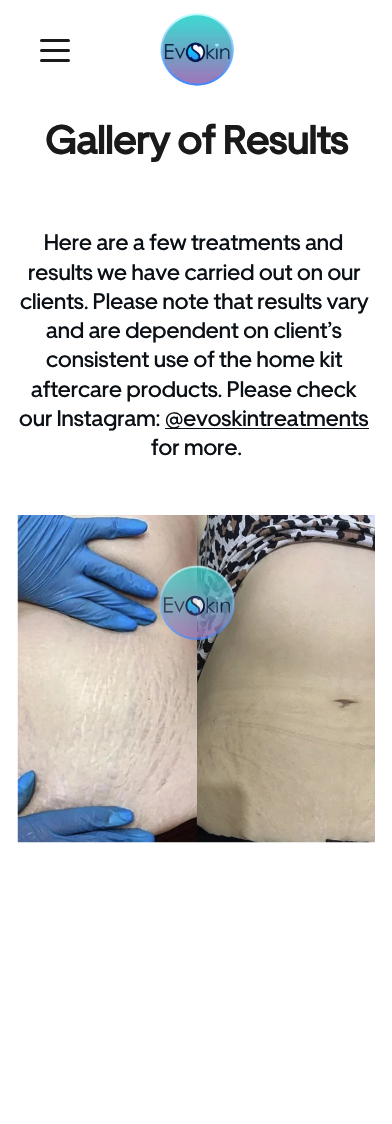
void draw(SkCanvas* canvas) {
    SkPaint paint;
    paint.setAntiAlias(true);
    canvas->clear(0xFFFFFFFF);
    paint.setColor(0xFF1A1A1A);
    canvas->drawRoundRect(SkRect::MakeXYWH(40, 39, 30, 3), 1.5f, 1.5f, paint);
    canvas->drawRoundRect(SkRect::MakeXYWH(40, 49, 30, 3), 1.5f, 1.5f, paint);
    canvas->drawRoundRect(SkRect::MakeXYWH(40, 59, 30, 3), 1.5f, 1.5f, paint);
    canvas->drawImageRect(SkImages::DeferredFromEncodedData(SkData::MakeFromFileName("img1.png")), SkRect::MakeXYWH(160, 13, 75, 73), SkSamplingOptions());
    SkFont font1(fontMgr->matchFamilyStyle("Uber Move", SkFontStyle::Bold()), 40);
    font1.setSubpixel(true);
    canvas->drawString("Gallery of Results", 45, 154, font1, paint);
    SkFont font2(fontMgr->matchFamilyStyle("Uber Move", SkFontStyle(500, SkFontStyle::kNormal_Width, SkFontStyle::kUpright_Slant)), 22.5f);
    font2.setSubpixel(true);
    paint.setColor(0xFF0A1015);
    canvas->drawString("Here are a few treatments and", 44, 250, font2, paint);
    canvas->drawString("results we have carried out on our", 28, 280, font2, paint);
    canvas->drawString("clients. Please note that results vary", 20, 309, font2, paint);
    canvas->drawString("and are dependent on client’s", 46, 338, font2, paint);
    canvas->drawString("consistent use of the home kit", 46, 367, font2, paint);
    canvas->drawString("aftercare products. Please check", 31, 397, font2, paint);
    canvas->drawString("our Instagram:", 19, 426, font2, paint);
    canvas->drawRect(SkRect::MakeXYWH(165, 428, 204, 1), paint);
    canvas->drawString("@evoskintreatments", 165, 426, font2, paint);
    canvas->drawString("for more.", 151, 455, font2, paint);
    canvas->drawImageRect(SkImages::DeferredFromEncodedData(SkData::MakeFromFileName("img2.png")), SkRect::MakeXYWH(17, 515, 358, 328), SkSamplingOptions());
}
